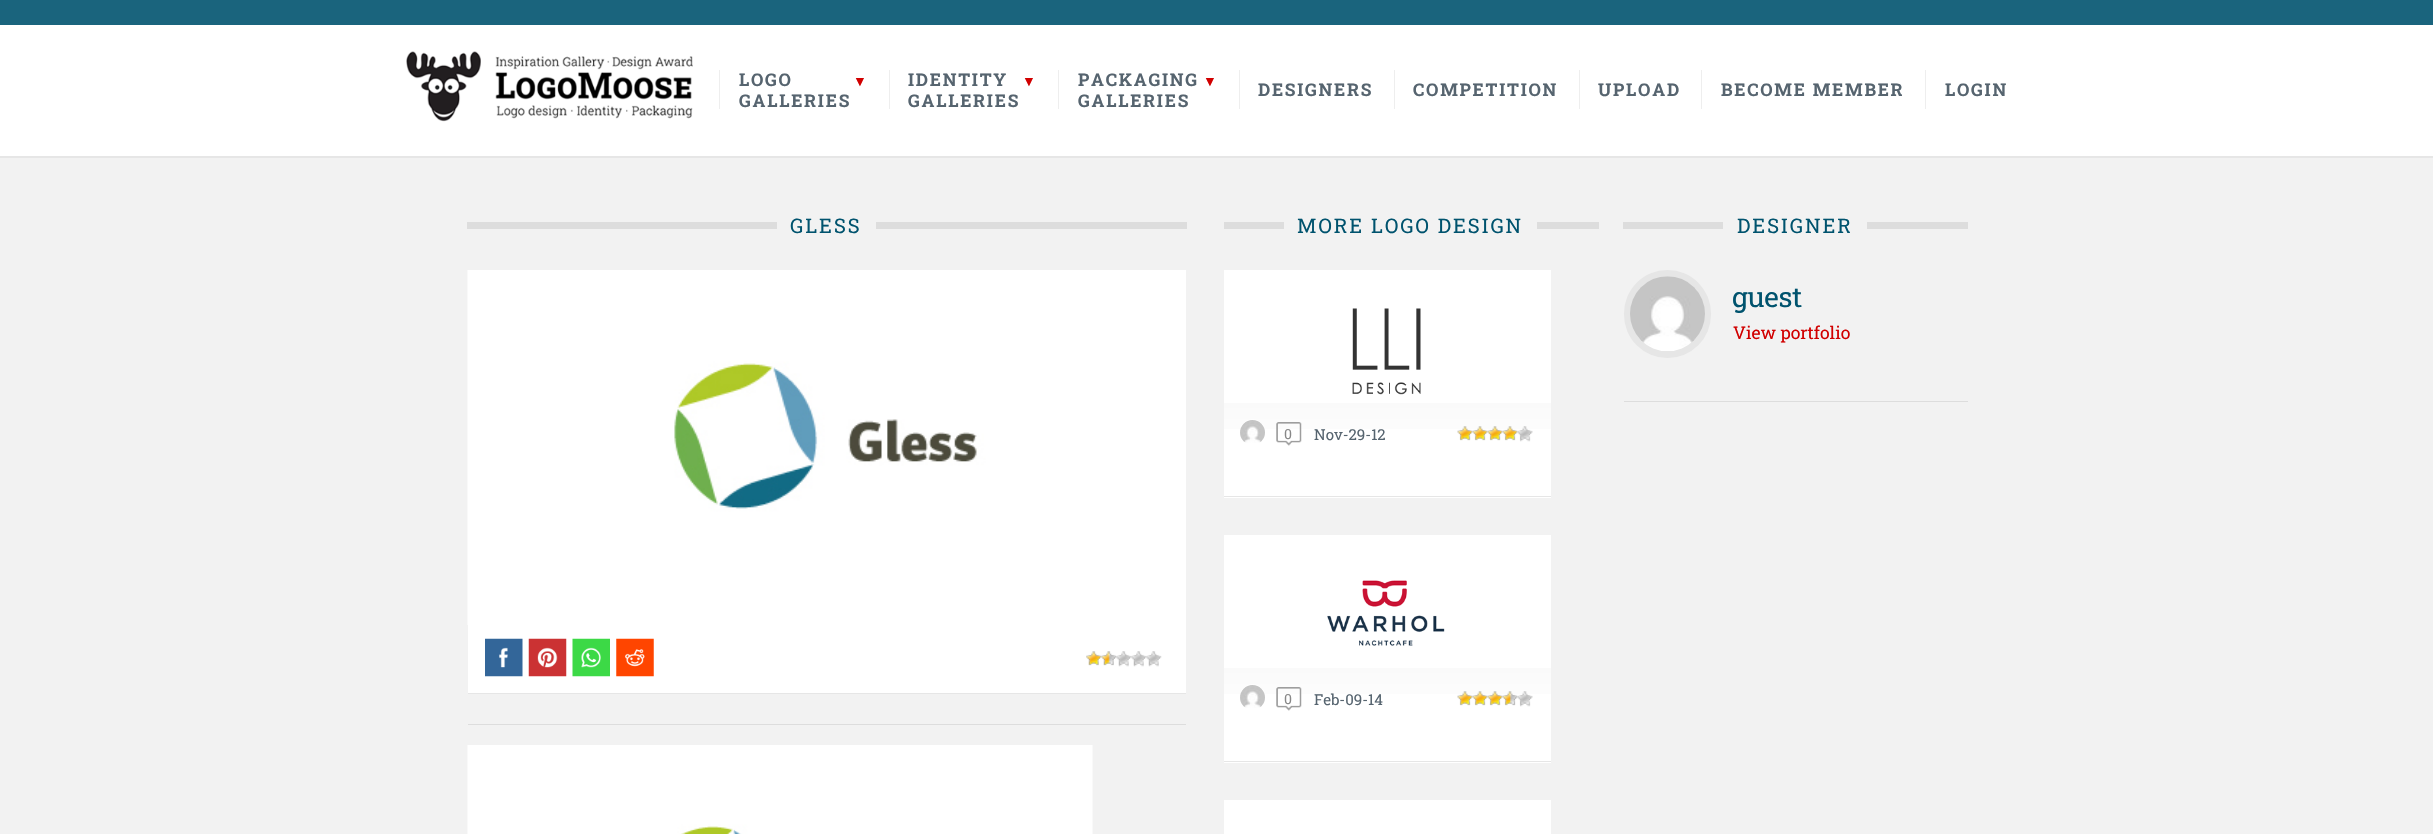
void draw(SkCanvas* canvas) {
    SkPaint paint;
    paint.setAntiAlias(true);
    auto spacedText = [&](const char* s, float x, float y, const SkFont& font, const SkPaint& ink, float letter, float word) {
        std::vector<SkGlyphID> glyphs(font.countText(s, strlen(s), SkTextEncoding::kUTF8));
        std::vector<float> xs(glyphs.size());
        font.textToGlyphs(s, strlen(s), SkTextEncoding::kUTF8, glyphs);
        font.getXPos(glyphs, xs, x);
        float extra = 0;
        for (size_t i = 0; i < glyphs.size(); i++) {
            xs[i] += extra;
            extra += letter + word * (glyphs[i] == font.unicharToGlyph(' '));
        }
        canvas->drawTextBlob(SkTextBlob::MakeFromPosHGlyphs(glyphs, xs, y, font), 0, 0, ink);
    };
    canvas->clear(0xFFF2F2F2);
    paint.setColor(0xFF1A647D);
    canvas->drawRect(SkRect::MakeXYWH(0, 0, 2433, 25), paint);
    paint.setColor(0xFFE6E6E6);
    canvas->drawPath(SkPathBuilder().moveTo(0, 156).lineTo(0, 158).lineTo(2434, 158).lineTo(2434, 26).lineTo(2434, 156).close().detach(), paint);
    paint.setColor(0xFFFFFFFF);
    canvas->drawRect(SkRect::MakeXYWH(0, 25, 2433, 131), paint);
    canvas->drawImageRect(SkImages::DeferredFromEncodedData(SkData::MakeFromFileName("img1.png")), SkRect::MakeXYWH(406, 51, 287, 71), SkSamplingOptions());
    paint.setColor(0xFFEEEEEE);
    canvas->drawRect(SkRect::MakeXYWH(719, 70, 1, 39), paint);
    SkFont font1(fontMgr->matchFamilyStyle("Roboto Slab", SkFontStyle::Bold()), 17.5f);
    font1.setSubpixel(true);
    paint.setColor(0xFF56646F);
    spacedText("LOGO", 739, 86, font1, paint, 1.75f, 0);
    SkFont font2(fontMgr->matchFamilyStyle("Liberation Serif", SkFontStyle::Normal()), 14);
    font2.setSubpixel(true);
    paint.setColor(0xFFD10000);
    spacedText("▼", 853, 86, font2, paint, 1.75f, 0);
    paint.setColor(0xFF56646F);
    spacedText("GALLERIES", 739, 107, font1, paint, 1.75f, 0);
    paint.setColor(0xFFEEEEEE);
    canvas->drawRect(SkRect::MakeXYWH(889, 70, 1, 39), paint);
    paint.setColor(0xFF56646F);
    spacedText("IDENTITY", 908, 86, font1, paint, 1.75f, 0);
    paint.setColor(0xFFD10000);
    spacedText("▼", 1022, 86, font2, paint, 1.75f, 0);
    paint.setColor(0xFF56646F);
    spacedText("GALLERIES", 908, 107, font1, paint, 1.75f, 0);
    paint.setColor(0xFFEEEEEE);
    canvas->drawRect(SkRect::MakeXYWH(1058, 70, 1, 39), paint);
    paint.setColor(0xFF56646F);
    spacedText("PACKAGING", 1078, 86, font1, paint, 1.75f, 0);
    paint.setColor(0xFFD10000);
    spacedText("▼", 1203, 86, font2, paint, 1.75f, 0);
    paint.setColor(0xFF56646F);
    spacedText("GALLERIES", 1078, 107, font1, paint, 1.75f, 0);
    paint.setColor(0xFFEEEEEE);
    canvas->drawRect(SkRect::MakeXYWH(1239, 70, 1, 39), paint);
    paint.setColor(0xFF56646F);
    spacedText("DESIGNERS", 1258, 96, font1, paint, 1.75f, 0);
    paint.setColor(0xFFEEEEEE);
    canvas->drawRect(SkRect::MakeXYWH(1394, 70, 1, 39), paint);
    paint.setColor(0xFF56646F);
    spacedText("COMPETITION", 1413, 96, font1, paint, 1.75f, 0);
    paint.setColor(0xFFEEEEEE);
    canvas->drawRect(SkRect::MakeXYWH(1579, 70, 1, 39), paint);
    paint.setColor(0xFF56646F);
    spacedText("UPLOAD", 1598, 96, font1, paint, 1.75f, 0);
    paint.setColor(0xFFEEEEEE);
    canvas->drawRect(SkRect::MakeXYWH(1701, 70, 1, 39), paint);
    paint.setColor(0xFF56646F);
    spacedText("BECOME MEMBER", 1721, 96, font1, paint, 1.75f, 0);
    paint.setColor(0xFFEEEEEE);
    canvas->drawRect(SkRect::MakeXYWH(1925, 70, 1, 39), paint);
    paint.setColor(0xFF56646F);
    spacedText("LOGIN", 1945, 96, font1, paint, 1.75f, 0);
    paint.setColor(0xFFDDDDDD);
    canvas->drawRect(SkRect::MakeXYWH(467, 222, 310, 7), paint);
    SkFont font3(fontMgr->matchFamilyStyle("Roboto Slab", SkFontStyle::Normal()), 20.1f);
    font3.setSubpixel(true);
    paint.setColor(0xFF00536E);
    spacedText("GLESS", 790, 233, font3, paint, 2, 0);
    paint.setColor(0xFFDDDDDD);
    canvas->drawRect(SkRect::MakeXYWH(876, 222, 311, 7), paint);
    canvas->drawImageRect(SkImages::DeferredFromEncodedData(SkData::MakeFromFileName("img2.png")), SkRect::MakeXYWH(467, 270, 719, 355), SkSamplingOptions());
    paint.setColor(0xFFFFFFFF);
    canvas->drawRect(SkRect::MakeXYWH(468, 625, 718, 68), paint);
    paint.setColor(0xFFE6E6E6);
    canvas->drawRect(SkRect::MakeXYWH(468, 693, 718, 1), paint);
    canvas->drawImageRect(SkImages::DeferredFromEncodedData(SkData::MakeFromFileName("img3.png")), SkRect::MakeXYWH(485, 638, 38, 39), SkSamplingOptions());
    canvas->drawImageRect(SkImages::DeferredFromEncodedData(SkData::MakeFromFileName("img4.png")), SkRect::MakeXYWH(528, 638, 39, 39), SkSamplingOptions());
    canvas->drawImageRect(SkImages::DeferredFromEncodedData(SkData::MakeFromFileName("img5.png")), SkRect::MakeXYWH(572, 638, 38, 39), SkSamplingOptions());
    canvas->drawImageRect(SkImages::DeferredFromEncodedData(SkData::MakeFromFileName("img6.png")), SkRect::MakeXYWH(616, 638, 38, 39), SkSamplingOptions());
    canvas->drawImageRect(SkImages::DeferredFromEncodedData(SkData::MakeFromFileName("img7.png")), SkRect::MakeXYWH(1086, 651, 16, 15), SkSamplingOptions());
    canvas->drawImageRect(SkImages::DeferredFromEncodedData(SkData::MakeFromFileName("img8.png")), SkRect::MakeXYWH(1101, 651, 16, 15), SkSamplingOptions());
    canvas->drawImageRect(SkImages::DeferredFromEncodedData(SkData::MakeFromFileName("img9.png")), SkRect::MakeXYWH(1116, 651, 16, 16), SkSamplingOptions());
    canvas->drawImageRect(SkImages::DeferredFromEncodedData(SkData::MakeFromFileName("img10.png")), SkRect::MakeXYWH(1131, 651, 16, 16), SkSamplingOptions());
    canvas->drawImageRect(SkImages::DeferredFromEncodedData(SkData::MakeFromFileName("img10.png")), SkRect::MakeXYWH(1146, 651, 16, 16), SkSamplingOptions());
    paint.setColor(0xFFDDDDDD);
    canvas->drawRect(SkRect::MakeXYWH(468, 724, 718, 1), paint);
    canvas->drawImageRect(SkImages::DeferredFromEncodedData(SkData::MakeFromFileName("img11.png")), SkRect::MakeXYWH(467, 745, 626, 89), SkSamplingOptions());
    canvas->drawRect(SkRect::MakeXYWH(1224, 222, 60, 7), paint);
    paint.setColor(0xFF00536E);
    spacedText("MORE LOGO DESIGN", 1297, 233, font3, paint, 2, 0);
    paint.setColor(0xFFDDDDDD);
    canvas->drawRect(SkRect::MakeXYWH(1537, 222, 62, 7), paint);
    paint.setColor(0xFFFFFFFF);
    canvas->drawRect(SkRect::MakeXYWH(1224, 270, 327, 228), paint);
    paint.setColor(0xFFE6E6E6);
    canvas->drawRect(SkRect::MakeXYWH(1224, 496, 327, 1), paint);
    canvas->drawImageRect(SkImages::DeferredFromEncodedData(SkData::MakeFromFileName("img12.png")), SkRect::MakeXYWH(1352, 308, 69, 87), SkSamplingOptions());
    {
        const SkColor colors[] = {0xFFFAFAFA, 0xFFFFFFFF};
        const float stops[] = {0, 1};
        const SkPoint ends[] = {{1388, 403}, {1388, 456}};
        paint.setShader(SkGradientShader::MakeLinear(ends, colors, stops, 2, SkTileMode::kClamp));
        paint.setAlpha(255);
    }
    canvas->drawRect(SkRect::MakeXYWH(1224, 403, 327, 26), paint);
    paint.setStyle(SkPaint::kStroke_Style);
    paint.setStrokeWidth(1);
    paint.setShader(nullptr);
    paint.setColor(0xFFFFFFFF);
    canvas->drawCircle(1252.5f, 432.5f, 13, paint);
    canvas->drawImageRect(SkImages::DeferredFromEncodedData(SkData::MakeFromFileName("img13.png")), SkRect::MakeXYWH(1240, 420, 25, 23), SkSamplingOptions());
    canvas->drawImageRect(SkImages::DeferredFromEncodedData(SkData::MakeFromFileName("img14.png")), SkRect::MakeXYWH(1276, 422, 26, 24), SkSamplingOptions());
    canvas->drawImageRect(SkImages::DeferredFromEncodedData(SkData::MakeFromFileName("img15.png")), SkRect::MakeXYWH(1457, 426, 16, 15), SkSamplingOptions());
    canvas->drawImageRect(SkImages::DeferredFromEncodedData(SkData::MakeFromFileName("img16.png")), SkRect::MakeXYWH(1472, 426, 16, 15), SkSamplingOptions());
    canvas->drawImageRect(SkImages::DeferredFromEncodedData(SkData::MakeFromFileName("img16.png")), SkRect::MakeXYWH(1487, 426, 16, 15), SkSamplingOptions());
    canvas->drawImageRect(SkImages::DeferredFromEncodedData(SkData::MakeFromFileName("img16.png")), SkRect::MakeXYWH(1502, 426, 16, 15), SkSamplingOptions());
    canvas->drawImageRect(SkImages::DeferredFromEncodedData(SkData::MakeFromFileName("img17.png")), SkRect::MakeXYWH(1517, 426, 16, 16), SkSamplingOptions());
    SkFont font4(fontMgr->matchFamilyStyle("Roboto Slab", SkFontStyle::Normal()), 14);
    font4.setSubpixel(true);
    paint.setStyle(SkPaint::kFill_Style);
    paint.setColor(0xFF888888);
    canvas->drawString("0", 1284, 439, font4, paint);
    SkFont font5(fontMgr->matchFamilyStyle("Roboto Slab", SkFontStyle::Normal()), 15);
    font5.setSubpixel(true);
    paint.setColor(0xFF56646F);
    canvas->drawString("Nov-29-12", 1314, 440, font5, paint);
    paint.setColor(0xFFFFFFFF);
    canvas->drawRect(SkRect::MakeXYWH(1224, 535, 327, 228), paint);
    paint.setColor(0xFFE6E6E6);
    canvas->drawRect(SkRect::MakeXYWH(1224, 761, 327, 1), paint);
    canvas->drawImageRect(SkImages::DeferredFromEncodedData(SkData::MakeFromFileName("img18.png")), SkRect::MakeXYWH(1327, 580, 118, 66), SkSamplingOptions());
    {
        const SkColor colors[] = {0xFFFAFAFA, 0xFFFFFFFF};
        const float stops[] = {0, 1};
        const SkPoint ends[] = {{1388, 668}, {1388, 721}};
        paint.setShader(SkGradientShader::MakeLinear(ends, colors, stops, 2, SkTileMode::kClamp));
        paint.setAlpha(255);
    }
    canvas->drawRect(SkRect::MakeXYWH(1224, 668, 327, 26), paint);
    paint.setStyle(SkPaint::kStroke_Style);
    paint.setShader(nullptr);
    paint.setColor(0xFFFFFFFF);
    canvas->drawCircle(1252.5f, 697.5f, 13, paint);
    canvas->drawImageRect(SkImages::DeferredFromEncodedData(SkData::MakeFromFileName("img13.png")), SkRect::MakeXYWH(1240, 685, 25, 23), SkSamplingOptions());
    canvas->drawImageRect(SkImages::DeferredFromEncodedData(SkData::MakeFromFileName("img14.png")), SkRect::MakeXYWH(1276, 687, 26, 24), SkSamplingOptions());
    paint.setStyle(SkPaint::kFill_Style);
    paint.setColor(0xFF56646F);
    canvas->drawString("Feb-09-14", 1314, 705, font5, paint);
    canvas->drawImageRect(SkImages::DeferredFromEncodedData(SkData::MakeFromFileName("img15.png")), SkRect::MakeXYWH(1457, 691, 16, 15), SkSamplingOptions());
    canvas->drawImageRect(SkImages::DeferredFromEncodedData(SkData::MakeFromFileName("img16.png")), SkRect::MakeXYWH(1472, 691, 16, 15), SkSamplingOptions());
    canvas->drawImageRect(SkImages::DeferredFromEncodedData(SkData::MakeFromFileName("img16.png")), SkRect::MakeXYWH(1487, 691, 16, 15), SkSamplingOptions());
    canvas->drawImageRect(SkImages::DeferredFromEncodedData(SkData::MakeFromFileName("img19.png")), SkRect::MakeXYWH(1502, 691, 16, 15), SkSamplingOptions());
    canvas->drawImageRect(SkImages::DeferredFromEncodedData(SkData::MakeFromFileName("img20.png")), SkRect::MakeXYWH(1517, 691, 16, 16), SkSamplingOptions());
    paint.setColor(0xFF888888);
    canvas->drawString("0", 1284, 704, font4, paint);
    paint.setColor(0xFFFFFFFF);
    canvas->drawRect(SkRect::MakeXYWH(1224, 800, 327, 34), paint);
    paint.setColor(0xFFDDDDDD);
    canvas->drawRect(SkRect::MakeXYWH(1623, 222, 100, 7), paint);
    paint.setColor(0xFF00536E);
    spacedText("DESIGNER", 1737, 233, font3, paint, 2, 0);
    paint.setColor(0xFFDDDDDD);
    canvas->drawRect(SkRect::MakeXYWH(1867, 222, 101, 7), paint);
    canvas->drawRect(SkRect::MakeXYWH(1624, 401, 344, 1), paint);
    paint.setColor(0xFFE6E6E6);
    canvas->drawRoundRect(SkRect::MakeXYWH(1624, 270, 87, 88), 43.5f, 43.5f, paint);
    canvas->drawImageRect(SkImages::DeferredFromEncodedData(SkData::MakeFromFileName("img21.png")), SkRect::MakeXYWH(1630, 276, 75, 75), SkSamplingOptions());
    SkFont font6(fontMgr->matchFamilyStyle("Roboto Slab", SkFontStyle::Normal()), 28);
    font6.setSubpixel(true);
    paint.setColor(0xFF00536E);
    spacedText("guest", 1732, 307, font6, paint, -0.25f, 0);
    SkFont font7(fontMgr->matchFamilyStyle("Roboto Slab", SkFontStyle::Normal()), 17.5f);
    font7.setSubpixel(true);
    paint.setColor(0xFFD10000);
    canvas->drawString("View portfolio", 1733, 339, font7, paint);
}
